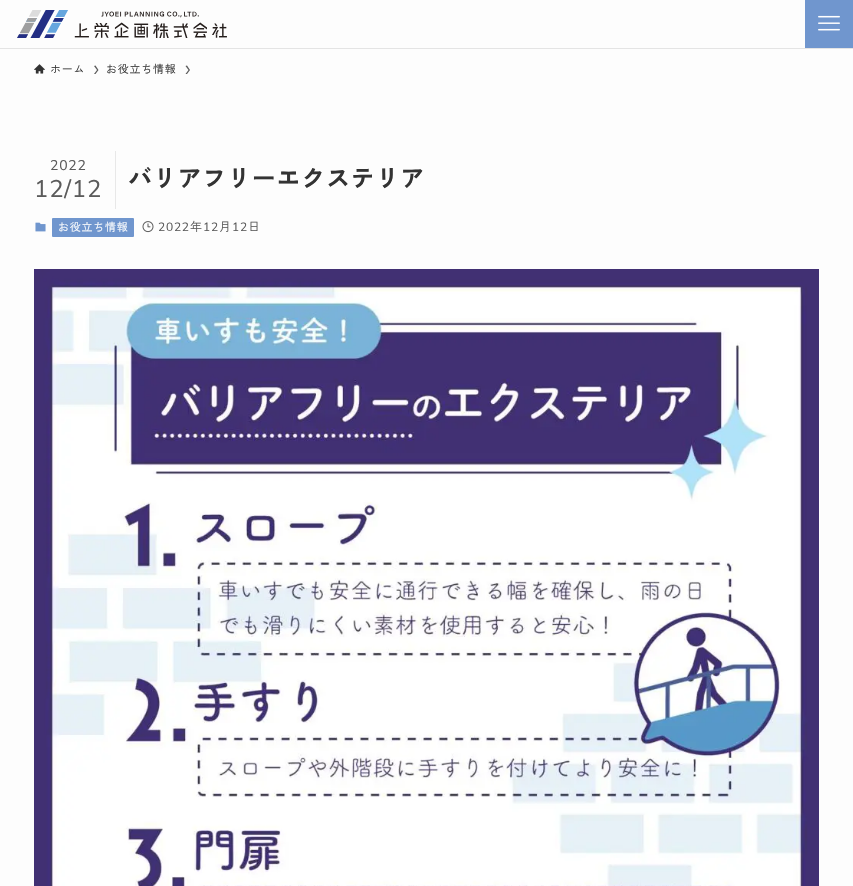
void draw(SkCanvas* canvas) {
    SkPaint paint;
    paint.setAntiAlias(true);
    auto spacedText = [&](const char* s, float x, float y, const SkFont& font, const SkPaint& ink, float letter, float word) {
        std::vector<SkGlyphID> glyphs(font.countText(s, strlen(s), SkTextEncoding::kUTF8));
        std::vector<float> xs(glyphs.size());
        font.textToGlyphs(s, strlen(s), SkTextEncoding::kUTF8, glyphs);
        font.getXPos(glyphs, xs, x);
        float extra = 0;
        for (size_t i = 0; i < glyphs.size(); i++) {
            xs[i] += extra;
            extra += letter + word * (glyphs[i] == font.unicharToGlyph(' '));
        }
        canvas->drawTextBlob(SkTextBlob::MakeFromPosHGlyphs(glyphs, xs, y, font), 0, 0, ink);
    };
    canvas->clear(0xFFFDFDFD);
    paint.setColor(0xFFE4E4E4);
    canvas->drawRect(SkRect::MakeXYWH(0, 48, 853, 1), paint);
    canvas->drawImageRect(SkImages::DeferredFromEncodedData(SkData::MakeFromFileName("img1.png")), SkRect::MakeXYWH(17, 10, 210, 28), SkSamplingOptions());
    paint.setColor(0xFF7096CE);
    canvas->drawRect(SkRect::MakeXYWH(805, 0, 48, 48), paint);
    canvas->drawImageRect(SkImages::DeferredFromEncodedData(SkData::MakeFromFileName("img2.png")), SkRect::MakeXYWH(818, 15, 22, 16), SkSamplingOptions());
    canvas->drawImageRect(SkImages::DeferredFromEncodedData(SkData::MakeFromFileName("img3.png")), SkRect::MakeXYWH(34, 64, 11, 10), SkSamplingOptions());
    SkFont font1(fontMgr->matchFamilyStyle("Zen Kaku Gothic New", SkFontStyle::Normal()), 11);
    font1.setSubpixel(true);
    paint.setColor(0xFF333333);
    spacedText("ホーム", 50, 73, font1, paint, 0.75f, 0);
    paint.setColor(0xFF5B5B5B);
    canvas->drawPath(SkPathBuilder().moveTo(95.5f, 65.5f).lineTo(94, 66).lineTo(97, 70).lineTo(94, 74).lineTo(95.5f, 74).lineTo(98.5f, 70).close().detach(), paint);
    paint.setColor(0xFF333333);
    spacedText("お役立ち情報", 106, 73, font1, paint, 0.75f, 0);
    paint.setColor(0xFF5B5B5B);
    canvas->drawPath(SkPathBuilder().moveTo(187, 65.5f).lineTo(185.5f, 66).lineTo(188.5f, 70).lineTo(185.5f, 74).lineTo(187, 74).lineTo(190, 70).close().detach(), paint);
    paint.setColor(0xFFE8E8E8);
    canvas->drawRect(SkRect::MakeXYWH(115, 151, 1, 58), paint);
    SkFont font2(fontMgr->matchFamilyStyle("Nunito Sans", SkFontStyle::Normal()), 14);
    font2.setSubpixel(true);
    paint.setColor(0xFF5B5B5B);
    spacedText("2022", 50, 170, font2, paint, 0.75f, 0);
    SkFont font3(fontMgr->matchFamilyStyle("Nunito Sans", SkFontStyle::Normal()), 24);
    font3.setSubpixel(true);
    spacedText("12/12", 34, 197, font3, paint, 0.75f, 0);
    SkFont font4(fontMgr->matchFamilyStyle("Zen Kaku Gothic New", SkFontStyle::Bold()), 24);
    font4.setSubpixel(true);
    paint.setColor(0xFF333333);
    spacedText("バリアフリーエクステリア", 128, 187, font4, paint, 0.75f, 0);
    canvas->drawImageRect(SkImages::DeferredFromEncodedData(SkData::MakeFromFileName("img4.png")), SkRect::MakeXYWH(35, 222, 11, 10), SkSamplingOptions());
    paint.setColor(0xFF7096CE);
    canvas->drawRoundRect(SkRect::MakeXYWH(52, 218, 82, 19), 1, 1, paint);
    paint.setColor(0xFFFFFFFF);
    spacedText("お役立ち情報", 58, 231, font1, paint, 0.75f, 0);
    canvas->drawImageRect(SkImages::DeferredFromEncodedData(SkData::MakeFromFileName("img5.png")), SkRect::MakeXYWH(142, 221, 12, 12), SkSamplingOptions());
    SkFont font5(fontMgr->matchFamilyStyle("Nunito Sans", SkFontStyle::Normal()), 12);
    font5.setSubpixel(true);
    paint.setColor(0xFF5B5B5B);
    spacedText("2022", 158, 231, font5, paint, 0.75f, 0);
    SkFont font6(fontMgr->matchFamilyStyle("Zen Kaku Gothic New", SkFontStyle::Normal()), 12);
    font6.setSubpixel(true);
    spacedText("年", 190, 231, font6, paint, 0.75f, 0);
    spacedText("12", 203, 231, font5, paint, 0.75f, 0);
    spacedText("月", 219, 231, font6, paint, 0.75f, 0);
    spacedText("12", 232, 231, font5, paint, 0.75f, 0);
    spacedText("日", 248, 231, font6, paint, 0.75f, 0);
    canvas->drawImageRect(SkImages::DeferredFromEncodedData(SkData::MakeFromFileName("img6.png")), SkRect::MakeXYWH(34, 269, 785, 617), SkSamplingOptions());
}
